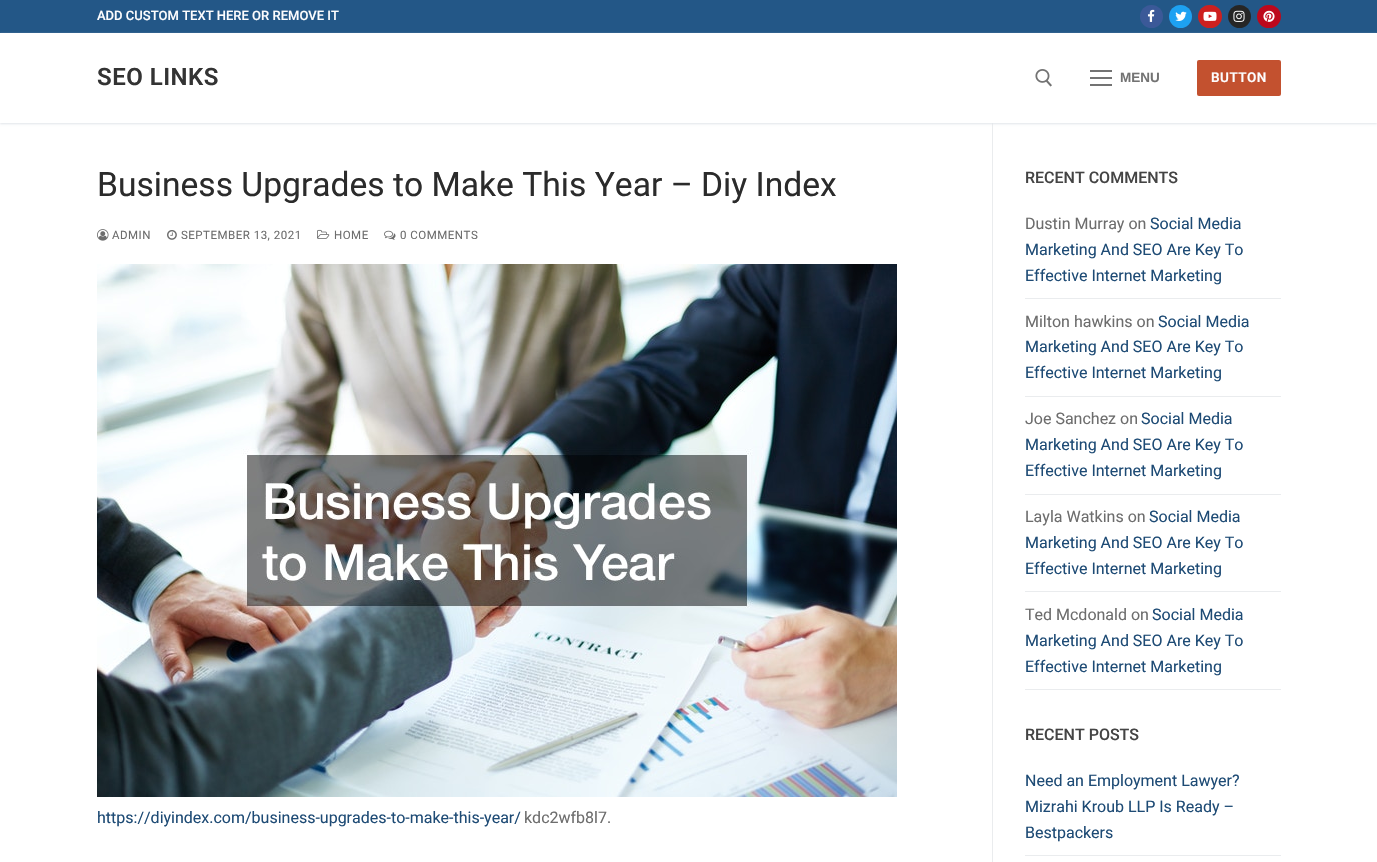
void draw(SkCanvas* canvas) {
    SkPaint paint;
    paint.setAntiAlias(true);
    auto spacedText = [&](const char* s, float x, float y, const SkFont& font, const SkPaint& ink, float letter, float word) {
        std::vector<SkGlyphID> glyphs(font.countText(s, strlen(s), SkTextEncoding::kUTF8));
        std::vector<float> xs(glyphs.size());
        font.textToGlyphs(s, strlen(s), SkTextEncoding::kUTF8, glyphs);
        font.getXPos(glyphs, xs, x);
        float extra = 0;
        for (size_t i = 0; i < glyphs.size(); i++) {
            xs[i] += extra;
            extra += letter + word * (glyphs[i] == font.unicharToGlyph(' '));
        }
        canvas->drawTextBlob(SkTextBlob::MakeFromPosHGlyphs(glyphs, xs, y, font), 0, 0, ink);
    };
    canvas->clear(0xFFFFFFFF);
    paint.setColor(0xFF235787);
    canvas->drawRect(SkRect::MakeXYWH(0, 0, 1377, 33), paint);
    SkFont font1(fontMgr->matchFamilyStyle("Roboto", SkFontStyle(500, SkFontStyle::kNormal_Width, SkFontStyle::kUpright_Slant)), 13);
    font1.setSubpixel(true);
    paint.setColor(0xFFFDFDFE);
    canvas->drawString("ADD CUSTOM TEXT HERE OR REMOVE IT", 97, 20, font1, paint);
    paint.setColor(0xFF3B5998);
    canvas->drawCircle(1151.5f, 16.5f, 11.5f, paint);
    canvas->drawImageRect(SkImages::DeferredFromEncodedData(SkData::MakeFromFileName("img1.png")), SkRect::MakeXYWH(1147, 9, 8, 13), SkSamplingOptions());
    paint.setColor(0xFF1DA1F2);
    canvas->drawCircle(1180.5f, 16.5f, 11.5f, paint);
    canvas->drawImageRect(SkImages::DeferredFromEncodedData(SkData::MakeFromFileName("img2.png")), SkRect::MakeXYWH(1175, 11, 12, 10), SkSamplingOptions());
    paint.setColor(0xFFCD201F);
    canvas->drawRoundRect(SkRect::MakeXYWH(1198, 5, 24, 23), 11.5f, 11.5f, paint);
    canvas->drawImageRect(SkImages::DeferredFromEncodedData(SkData::MakeFromFileName("img3.png")), SkRect::MakeXYWH(1203, 11, 14, 10), SkSamplingOptions());
    paint.setColor(0xFF262626);
    canvas->drawCircle(1239.5f, 16.5f, 11.5f, paint);
    canvas->drawImageRect(SkImages::DeferredFromEncodedData(SkData::MakeFromFileName("img4.png")), SkRect::MakeXYWH(1233, 10, 12, 12), SkSamplingOptions());
    paint.setColor(0xFFBD081C);
    canvas->drawRoundRect(SkRect::MakeXYWH(1257, 5, 24, 23), 11.5f, 11.5f, paint);
    canvas->drawImageRect(SkImages::DeferredFromEncodedData(SkData::MakeFromFileName("img5.png")), SkRect::MakeXYWH(1263, 10, 12, 12), SkSamplingOptions());
    paint.setColor(0xFFEAECEE);
    canvas->drawRect(SkRect::MakeXYWH(992, 123, 1, 739), paint);
    canvas->save();
    canvas->clipPath(SkPathBuilder(SkPathFillType::kEvenOdd).moveTo(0, 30).lineTo(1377, 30).lineTo(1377, 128).lineTo(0, 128).close().moveTo(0, 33).lineTo(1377, 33).lineTo(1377, 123).lineTo(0, 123).close().detach(), true);
    paint.setColor(0xFFE1E5EA);
    paint.setMaskFilter(SkMaskFilter::MakeBlur(kNormal_SkBlurStyle, 1));
    canvas->drawRect(SkRect::MakeXYWH(0, 34, 1377, 90), paint);
    paint.setMaskFilter(nullptr);
    canvas->restore();
    SkFont font2(fontMgr->matchFamilyStyle("Roboto", SkFontStyle(600, SkFontStyle::kNormal_Width, SkFontStyle::kUpright_Slant)), 24);
    font2.setSubpixel(true);
    paint.setColor(0xFF333333);
    spacedText("SEO LINKS", 97, 85, font2, paint, 0.5f, 0);
    canvas->drawImageRect(SkImages::DeferredFromEncodedData(SkData::MakeFromFileName("img6.png")), SkRect::MakeXYWH(1035, 69, 17, 18), SkSamplingOptions());
    paint.setColor(0xFF737373);
    canvas->drawRect(SkRect::MakeXYWH(1090, 77, 22, 2), paint);
    canvas->drawRect(SkRect::MakeXYWH(1090, 70, 22, 2), paint);
    canvas->drawRect(SkRect::MakeXYWH(1090, 84, 22, 2), paint);
    SkFont font3(fontMgr->matchFamilyStyle("Liberation Sans", SkFontStyle::Bold()), 13.5f);
    font3.setSubpixel(true);
    canvas->drawString("MENU", 1120, 82, font3, paint);
    paint.setColor(0xFFC3512F);
    canvas->drawRoundRect(SkRect::MakeXYWH(1197, 60, 84, 36), 2, 2, paint);
    SkFont font4(fontMgr->matchFamilyStyle("Roboto", SkFontStyle(600, SkFontStyle::kNormal_Width, SkFontStyle::kUpright_Slant)), 13.5f);
    font4.setSubpixel(true);
    paint.setColor(0xFFFDFDFE);
    spacedText("BUTTON", 1211, 82, font4, paint, 0.5f, 0);
    SkFont font5(fontMgr->matchFamilyStyle("Roboto", SkFontStyle::Normal()), 33.6f);
    font5.setSubpixel(true);
    paint.setColor(0xFF2B2B2B);
    canvas->drawString("Business Upgrades to Make This Year – Diy Index", 97, 196, font5, paint);
    canvas->drawImageRect(SkImages::DeferredFromEncodedData(SkData::MakeFromFileName("img7.png")), SkRect::MakeXYWH(97, 229, 12, 12), SkSamplingOptions());
    SkFont font6(fontMgr->matchFamilyStyle("Roboto", SkFontStyle::Normal()), 11.5f);
    font6.setSubpixel(true);
    paint.setColor(0xFF6D6D6D);
    spacedText("ADMIN", 112, 239, font6, paint, 0.5f, 0);
    canvas->drawImageRect(SkImages::DeferredFromEncodedData(SkData::MakeFromFileName("img8.png")), SkRect::MakeXYWH(167, 230, 10, 10), SkSamplingOptions());
    spacedText("SEPTEMBER 13, 2021", 181, 239, font6, paint, 0.5f, 0);
    canvas->drawImageRect(SkImages::DeferredFromEncodedData(SkData::MakeFromFileName("img9.png")), SkRect::MakeXYWH(317, 229, 13, 10), SkSamplingOptions());
    spacedText("HOME", 334, 239, font6, paint, 0.5f, 0);
    canvas->drawImageRect(SkImages::DeferredFromEncodedData(SkData::MakeFromFileName("img10.png")), SkRect::MakeXYWH(384, 230, 12, 10), SkSamplingOptions());
    spacedText("0 COMMENTS", 400, 239, font6, paint, 0.5f, 0);
    canvas->drawImageRect(SkImages::DeferredFromEncodedData(SkData::MakeFromFileName("img11.png")), SkRect::MakeXYWH(97, 264, 800, 533), SkSamplingOptions());
    SkFont font7(fontMgr->matchFamilyStyle("Roboto", SkFontStyle::Normal()), 16);
    font7.setSubpixel(true);
    paint.setColor(0xFF1E4B75);
    canvas->drawString("https://diyindex.com/business-upgrades-to-make-this-year/", 97, 823, font7, paint);
    paint.setColor(0xFF6D6D6D);
    canvas->drawString("kdc2wfb8l7.", 524, 823, font7, paint);
    SkFont font8(fontMgr->matchFamilyStyle("Roboto", SkFontStyle(500, SkFontStyle::kNormal_Width, SkFontStyle::kUpright_Slant)), 16);
    font8.setSubpixel(true);
    paint.setColor(0xFF444444);
    canvas->drawString("RECENT COMMENTS", 1025, 183, font8, paint);
    paint.setColor(0xFFEAECEE);
    canvas->drawRect(SkRect::MakeXYWH(1025, 298, 256, 1), paint);
    paint.setColor(0xFF6D6D6D);
    canvas->drawString("Dustin Murray on", 1025, 229, font7, paint);
    paint.setColor(0xFF1E4B75);
    canvas->drawString("Social Media", 1150, 229, font7, paint);
    canvas->drawString("Marketing And SEO Are Key To", 1025, 255, font7, paint);
    canvas->drawString("Effective Internet Marketing", 1025, 281, font7, paint);
    paint.setColor(0xFFEAECEE);
    canvas->drawRect(SkRect::MakeXYWH(1025, 396, 256, 1), paint);
    paint.setColor(0xFF6D6D6D);
    canvas->drawString("Milton hawkins on", 1025, 327, font7, paint);
    paint.setColor(0xFF1E4B75);
    canvas->drawString("Social Media", 1158, 327, font7, paint);
    canvas->drawString("Marketing And SEO Are Key To", 1025, 352, font7, paint);
    canvas->drawString("Effective Internet Marketing", 1025, 378, font7, paint);
    paint.setColor(0xFFEAECEE);
    canvas->drawRect(SkRect::MakeXYWH(1025, 494, 256, 1), paint);
    paint.setColor(0xFF6D6D6D);
    canvas->drawString("Joe Sanchez on", 1025, 424, font7, paint);
    paint.setColor(0xFF1E4B75);
    canvas->drawString("Social Media", 1141, 424, font7, paint);
    canvas->drawString("Marketing And SEO Are Key To", 1025, 450, font7, paint);
    canvas->drawString("Effective Internet Marketing", 1025, 476, font7, paint);
    paint.setColor(0xFFEAECEE);
    canvas->drawRect(SkRect::MakeXYWH(1025, 591, 256, 1), paint);
    paint.setColor(0xFF6D6D6D);
    canvas->drawString("Layla Watkins on", 1025, 522, font7, paint);
    paint.setColor(0xFF1E4B75);
    canvas->drawString("Social Media", 1149, 522, font7, paint);
    canvas->drawString("Marketing And SEO Are Key To", 1025, 548, font7, paint);
    canvas->drawString("Effective Internet Marketing", 1025, 574, font7, paint);
    paint.setColor(0xFFEAECEE);
    canvas->drawRect(SkRect::MakeXYWH(1025, 689, 256, 1), paint);
    paint.setColor(0xFF6D6D6D);
    canvas->drawString("Ted Mcdonald on", 1025, 620, font7, paint);
    paint.setColor(0xFF1E4B75);
    canvas->drawString("Social Media", 1152, 620, font7, paint);
    canvas->drawString("Marketing And SEO Are Key To", 1025, 646, font7, paint);
    canvas->drawString("Effective Internet Marketing", 1025, 672, font7, paint);
    paint.setColor(0xFF444444);
    canvas->drawString("RECENT POSTS", 1025, 740, font8, paint);
    paint.setColor(0xFFEAECEE);
    canvas->drawRect(SkRect::MakeXYWH(1025, 855, 256, 1), paint);
    paint.setColor(0xFF1E4B75);
    canvas->drawString("Need an Employment Lawyer?", 1025, 786, font7, paint);
    canvas->drawString("Mizrahi Kroub LLP Is Ready –", 1025, 812, font7, paint);
    canvas->drawString("Bestpackers", 1025, 838, font7, paint);
}
